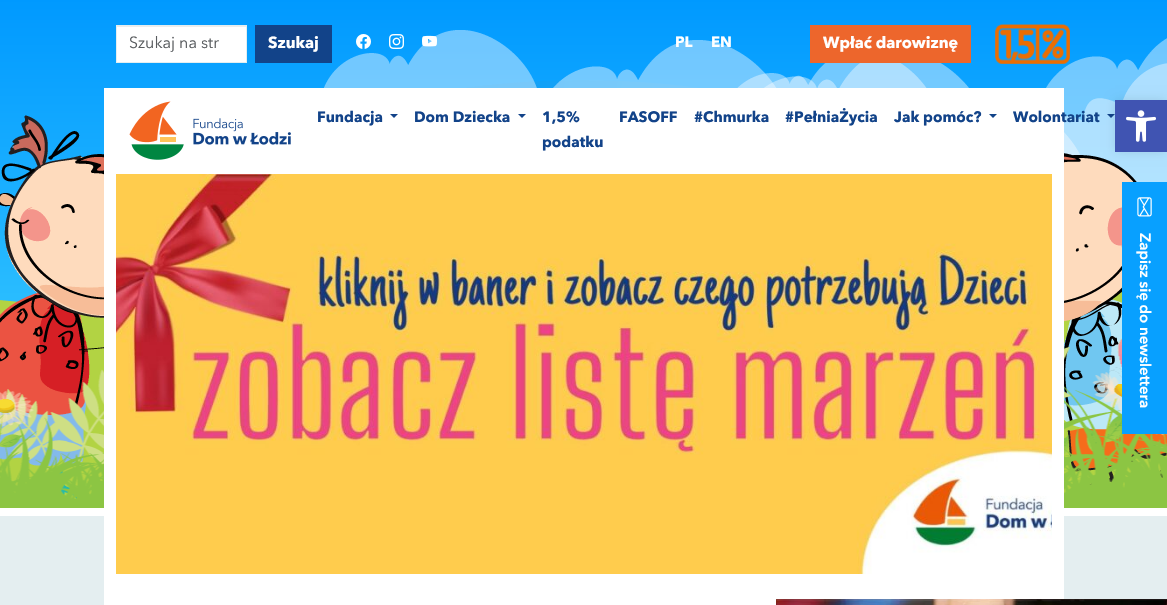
void draw(SkCanvas* canvas) {
    SkPaint paint;
    paint.setAntiAlias(true);
    canvas->clear(0xFFE4EEF0);
    canvas->drawImageRect(SkImages::DeferredFromEncodedData(SkData::MakeFromFileName("img1.png")), SkRect::MakeXYWH(0, 0, 1167, 302), SkSamplingOptions());
    paint.setColor(0xFFFFFFFF);
    canvas->drawRect(SkRect::MakeXYWH(0, 508, 1167, 8), paint);
    canvas->drawImageRect(SkImages::DeferredFromEncodedData(SkData::MakeFromFileName("img6.png")), SkRect::MakeXYWH(465, 80, 233, 8), SkSamplingOptions());
    canvas->drawImageRect(SkImages::DeferredFromEncodedData(SkData::MakeFromFileName("img2.png")), SkRect::MakeXYWH(324, 30, 213, 58), SkSamplingOptions());
    canvas->drawImageRect(SkImages::DeferredFromEncodedData(SkData::MakeFromFileName("img4.png")), SkRect::MakeXYWH(737, 63, 190, 25), SkSamplingOptions());
    canvas->drawImageRect(SkImages::DeferredFromEncodedData(SkData::MakeFromFileName("img7.png")), SkRect::MakeXYWH(764, 63, 205, 25), SkSamplingOptions());
    canvas->drawImageRect(SkImages::DeferredFromEncodedData(SkData::MakeFromFileName("img3.png")), SkRect::MakeXYWH(553, 40, 224, 48), SkSamplingOptions());
    canvas->drawImageRect(SkImages::DeferredFromEncodedData(SkData::MakeFromFileName("img8.png")), SkRect::MakeXYWH(1064, 63, 103, 119), SkSamplingOptions());
    canvas->drawImageRect(SkImages::DeferredFromEncodedData(SkData::MakeFromFileName("img5.png")), SkRect::MakeXYWH(1046, 38, 121, 144), SkSamplingOptions());
    canvas->drawImageRect(SkImages::DeferredFromEncodedData(SkData::MakeFromFileName("img9.png")), SkRect::MakeXYWH(0, 291, 1167, 208), SkSamplingOptions());
    canvas->drawImageRect(SkImages::DeferredFromEncodedData(SkData::MakeFromFileName("img10.png")), SkRect::MakeXYWH(0, 115, 104, 384), SkSamplingOptions());
    canvas->drawImageRect(SkImages::DeferredFromEncodedData(SkData::MakeFromFileName("img11.png")), SkRect::MakeXYWH(79, 347, 25, 4), SkSamplingOptions());
    canvas->drawImageRect(SkImages::DeferredFromEncodedData(SkData::MakeFromFileName("img14.png")), SkRect::MakeXYWH(1064, 132, 17, 24), SkSamplingOptions());
    canvas->drawImageRect(SkImages::DeferredFromEncodedData(SkData::MakeFromFileName("img12.png")), SkRect::MakeXYWH(1064, 153, 103, 332), SkSamplingOptions());
    canvas->drawImageRect(SkImages::DeferredFromEncodedData(SkData::MakeFromFileName("img13.png")), SkRect::MakeXYWH(0, 338, 1167, 170), SkSamplingOptions());
    canvas->drawRect(SkRect::MakeXYWH(117, 27, 129, 35), paint);
    paint.setColor(0xFFECECEC);
    canvas->drawRect(SkRect::MakeXYWH(117, 26, 129, 1), paint);
    paint.setStyle(SkPaint::kStroke_Style);
    paint.setStrokeWidth(1);
    paint.setColor(0xFFE4EEF0);
    canvas->drawRect(SkRect::MakeXYWH(116.5f, 25.5f, 130, 37), paint);
    SkFont font1(fontMgr->matchFamilyStyle("Avenir Next", SkFontStyle::Normal()), 16);
    font1.setSubpixel(true);
    paint.setStyle(SkPaint::kFill_Style);
    paint.setColor(0xFF595C5F);
    canvas->drawString("Szukaj na str", 129, 48, font1, paint);
    paint.setColor(0xFF124389);
    canvas->drawRect(SkRect::MakeXYWH(255, 25, 77, 38), paint);
    SkFont font2(fontMgr->matchFamilyStyle("Avenir Next", SkFontStyle::Bold()), 16);
    font2.setSubpixel(true);
    paint.setColor(0xFFFFFFFF);
    canvas->drawString("Szukaj", 268, 48, font2, paint);
    canvas->drawImageRect(SkImages::DeferredFromEncodedData(SkData::MakeFromFileName("img15.png")), SkRect::MakeXYWH(356, 34, 15, 15), SkSamplingOptions());
    canvas->drawImageRect(SkImages::DeferredFromEncodedData(SkData::MakeFromFileName("img16.png")), SkRect::MakeXYWH(389, 34, 15, 15), SkSamplingOptions());
    canvas->drawImageRect(SkImages::DeferredFromEncodedData(SkData::MakeFromFileName("img17.png")), SkRect::MakeXYWH(422, 35, 15, 12), SkSamplingOptions());
    SkFont font3(fontMgr->matchFamilyStyle("Avenir Next", SkFontStyle::Bold()), 15);
    font3.setSubpixel(true);
    canvas->drawString("PL", 675, 47, font3, paint);
    canvas->drawString("EN", 711, 47, font3, paint);
    paint.setColor(0xFFED662C);
    canvas->drawRect(SkRect::MakeXYWH(810, 25, 161, 38), paint);
    paint.setColor(0xFFFFFFFF);
    canvas->drawString("Wpłać darowiznę", 823, 48, font2, paint);
    canvas->drawImageRect(SkImages::DeferredFromEncodedData(SkData::MakeFromFileName("img18.png")), SkRect::MakeXYWH(995, 24, 75, 40), SkSamplingOptions());
    canvas->drawRect(SkRect::MakeXYWH(104, 88, 960, 517), paint);
    canvas->drawImageRect(SkImages::DeferredFromEncodedData(SkData::MakeFromFileName("img19.png")), SkRect::MakeXYWH(129, 101, 162, 59), SkSamplingOptions());
    paint.setColor(0xFF124389);
    canvas->drawString("Fundacja", 317, 122, font3, paint);
    canvas->drawPath(SkPathBuilder().moveTo(390, 114).lineTo(398, 114).lineTo(394, 118).close().detach(), paint);
    canvas->drawString("Dom Dziecka", 414, 122, font3, paint);
    canvas->drawPath(SkPathBuilder().moveTo(518, 114).lineTo(526, 114).lineTo(522, 118).close().detach(), paint);
    canvas->drawString("1,5%", 542, 122, font3, paint);
    canvas->drawString("podatku", 542, 147, font3, paint);
    canvas->drawString("FASOFF", 619, 122, font3, paint);
    canvas->drawString("#Chmurka", 694, 122, font3, paint);
    canvas->drawString("#PełniaŻycia", 785, 122, font3, paint);
    canvas->drawString("Jak pomóc?", 894, 122, font3, paint);
    canvas->drawPath(SkPathBuilder().moveTo(989, 114).lineTo(997, 114).lineTo(993, 118).close().detach(), paint);
    canvas->drawString("Wolontariat", 1013, 122, font3, paint);
    canvas->drawPath(SkPathBuilder().moveTo(1107, 114).lineTo(1115, 114).lineTo(1111, 118).close().detach(), paint);
    canvas->drawImageRect(SkImages::DeferredFromEncodedData(SkData::MakeFromFileName("img20.png")), SkRect::MakeXYWH(116, 174, 936, 400), SkSamplingOptions());
    canvas->drawImageRect(SkImages::DeferredFromEncodedData(SkData::MakeFromFileName("img21.png")), SkRect::MakeXYWH(776, 599, 391, 6), SkSamplingOptions());
    paint.setColor(0xFF08A0FF);
    canvas->drawRect(SkRect::MakeXYWH(1122, 182, 45, 252), paint);
    canvas->drawImageRect(SkImages::DeferredFromEncodedData(SkData::MakeFromFileName("img22.png")), SkRect::MakeXYWH(1137, 197, 15, 20), SkSamplingOptions());
    SkFont font4(fontMgr->matchFamilyStyle("Avenir Next", SkFontStyle(600, SkFontStyle::kNormal_Width, SkFontStyle::kUpright_Slant)), 15);
    font4.setSubpixel(true);
    paint.setColor(0xFFFFFFFF);
    canvas->save();
    canvas->rotate(90, 1140, 233);
    canvas->drawString("Zapisz się do newslettera", 1140, 233, font4, paint);
    canvas->restore();
    paint.setColor(0x1A000000);
    paint.setMaskFilter(SkMaskFilter::MakeBlur(kNormal_SkBlurStyle, 5));
    canvas->drawRect(SkRect::MakeXYWH(1115, 100, 52, 52), paint);
    paint.setMaskFilter(nullptr);
    paint.setColor(0xFF4054B2);
    canvas->drawRect(SkRect::MakeXYWH(1115, 100, 52, 52), paint);
    canvas->drawImageRect(SkImages::DeferredFromEncodedData(SkData::MakeFromFileName("img23.png")), SkRect::MakeXYWH(1126, 110, 30, 32), SkSamplingOptions());
}
